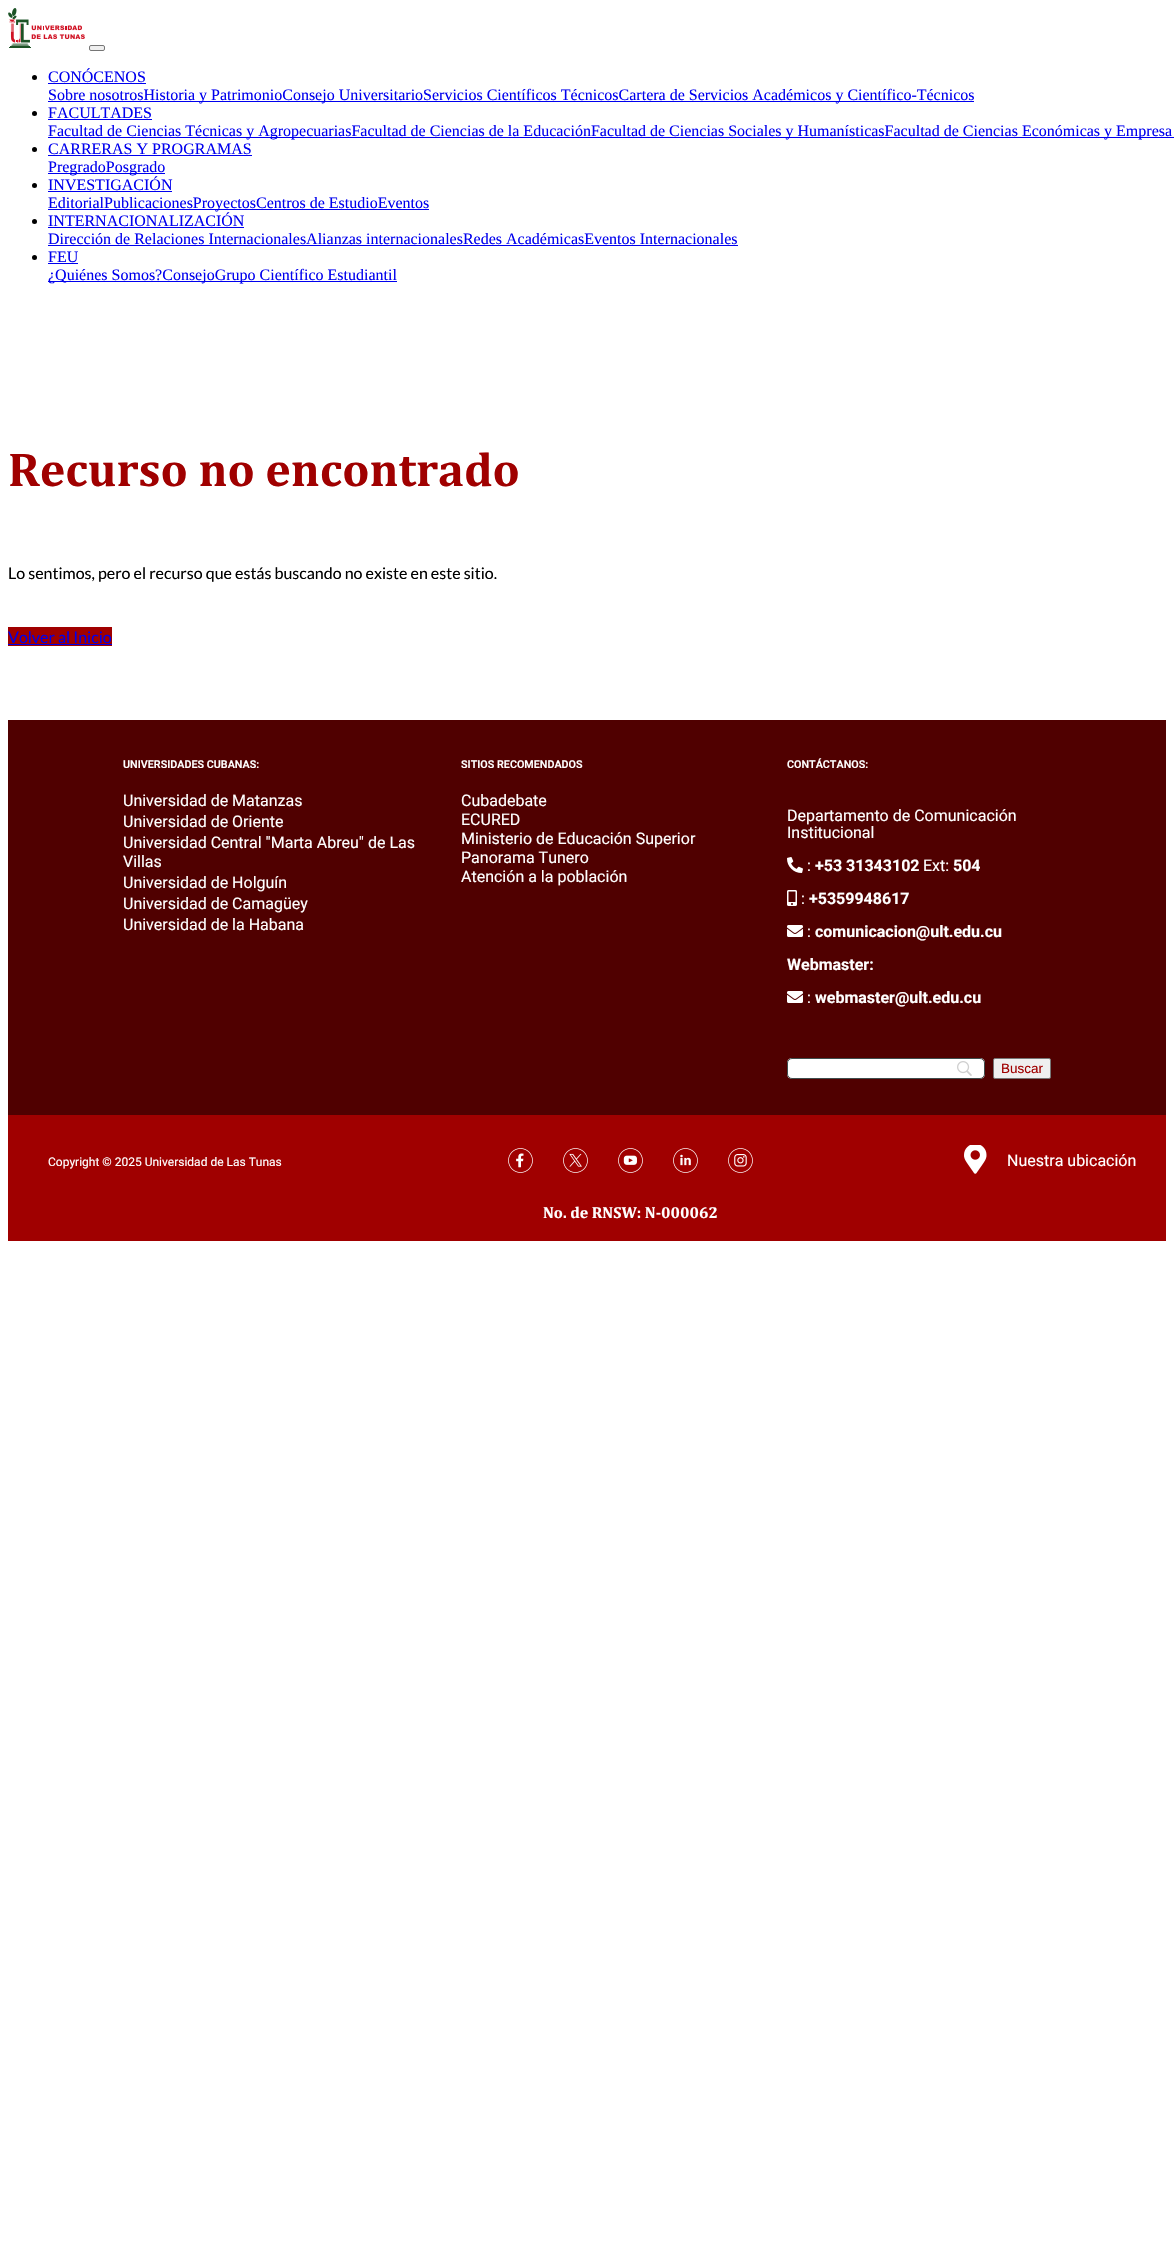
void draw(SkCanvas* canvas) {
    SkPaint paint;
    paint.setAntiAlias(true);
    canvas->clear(0xFFFFFFFF);
    canvas->drawImageRect(SkImages::DeferredFromEncodedData(SkData::MakeFromFileName("img1.png")), SkRect::MakeXYWH(8, 8, 77, 40), SkSamplingOptions());
    paint.setColor(0xFFEFEFEF);
    canvas->drawRoundRect(SkRect::MakeXYWH(89.5f, 45.5f, 15, 5), 1.5f, 1.5f, paint);
    paint.setStyle(SkPaint::kStroke_Style);
    paint.setStrokeWidth(1);
    paint.setColor(0xFF767676);
    canvas->drawRoundRect(SkRect::MakeXYWH(89.5f, 45.5f, 15, 5), 1.5f, 1.5f, paint);
    paint.setStyle(SkPaint::kFill_Style);
    paint.setColor(0xFF000000);
    canvas->drawCircle(34.5f, 77.5f, 2.5f, paint);
    SkFont font1(fontMgr->matchFamilyStyle("Liberation Serif", SkFontStyle::Normal()), 16);
    font1.setSubpixel(true);
    paint.setColor(0xFF0000EE);
    canvas->drawString("CONÓCENOS", 48, 82, font1, paint);
    canvas->drawRect(SkRect::MakeXYWH(48, 83, 98, 1), paint);
    canvas->drawRect(SkRect::MakeXYWH(48, 101, 926, 1), paint);
    canvas->drawString("Sobre nosotrosHistoria y PatrimonioConsejo UniversitarioServicios Científicos TécnicosCartera de Servicios Académicos y Científico-Técnicos", 48, 100, font1, paint);
    paint.setColor(0xFF000000);
    canvas->drawCircle(34.5f, 113.5f, 2.5f, paint);
    paint.setColor(0xFF0000EE);
    canvas->drawString("FACULTADES", 48, 118, font1, paint);
    canvas->drawRect(SkRect::MakeXYWH(48, 119, 104, 1), paint);
    canvas->drawRect(SkRect::MakeXYWH(48, 137, 1126, 1), paint);
    canvas->drawString("Facultad de Ciencias Técnicas y AgropecuariasFacultad de Ciencias de la EducaciónFacultad de Ciencias Sociales y HumanísticasFacultad de Ciencias Económicas y Empresa", 48, 136, font1, paint);
    paint.setColor(0xFF000000);
    canvas->drawCircle(34.5f, 149.5f, 2.5f, paint);
    paint.setColor(0xFF0000EE);
    canvas->drawString("CARRERAS Y PROGRAMAS", 48, 154, font1, paint);
    canvas->drawRect(SkRect::MakeXYWH(48, 155, 204, 1), paint);
    canvas->drawRect(SkRect::MakeXYWH(48, 173, 117, 1), paint);
    canvas->drawString("PregradoPosgrado", 48, 172, font1, paint);
    paint.setColor(0xFF000000);
    canvas->drawCircle(34.5f, 185.5f, 2.5f, paint);
    paint.setColor(0xFF0000EE);
    canvas->drawString("INVESTIGACIÓN", 48, 190, font1, paint);
    canvas->drawRect(SkRect::MakeXYWH(48, 191, 124, 1), paint);
    canvas->drawRect(SkRect::MakeXYWH(48, 209, 381, 1), paint);
    canvas->drawString("EditorialPublicacionesProyectosCentros de EstudioEventos", 48, 208, font1, paint);
    paint.setColor(0xFF000000);
    canvas->drawCircle(34.5f, 221.5f, 2.5f, paint);
    paint.setColor(0xFF0000EE);
    canvas->drawString("INTERNACIONALIZACIÓN", 48, 226, font1, paint);
    canvas->drawRect(SkRect::MakeXYWH(48, 227, 196, 1), paint);
    canvas->drawString("Dirección de Relaciones InternacionalesAlianzas internacionalesRedes AcadémicasEventos Internacionales", 48, 244, font1, paint);
    canvas->drawRect(SkRect::MakeXYWH(48, 245, 690, 1), paint);
    paint.setColor(0xFF000000);
    canvas->drawCircle(34.5f, 257.5f, 2.5f, paint);
    paint.setColor(0xFF0000EE);
    canvas->drawString("FEU", 48, 262, font1, paint);
    canvas->drawRect(SkRect::MakeXYWH(48, 263, 30, 1), paint);
    canvas->drawRect(SkRect::MakeXYWH(48, 281, 349, 1), paint);
    canvas->drawString("¿Quiénes Somos?ConsejoGrupo Científico Estudiantil", 48, 280, font1, paint);
    SkFont font2(fontMgr->matchFamilyStyle("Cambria", SkFontStyle::Bold()), 48);
    font2.setSubpixel(true);
    paint.setColor(0xFFA00000);
    canvas->drawString("Recurso no encontrado", 8, 486, font2, paint);
    SkFont font3(fontMgr->matchFamilyStyle("Lato", SkFontStyle::Normal()), 16);
    font3.setSubpixel(true);
    paint.setColor(0xFF000000);
    canvas->drawString("Lo sentimos, pero el recurso que estás buscando no existe en este sitio.", 8, 579, font3, paint);
    paint.setColor(0xFFA00000);
    canvas->drawRect(SkRect::MakeXYWH(8, 627, 104, 19), paint);
    paint.setColor(0xFF0000EE);
    canvas->drawString("Volver al Inicio", 8, 643, font3, paint);
    canvas->drawRect(SkRect::MakeXYWH(8, 644, 104, 1), paint);
    paint.setColor(0xFF500000);
    canvas->drawRect(SkRect::MakeXYWH(8, 720, 1158, 395), paint);
    SkFont font4(fontMgr->matchFamilyStyle("Roboto", SkFontStyle(600, SkFontStyle::kNormal_Width, SkFontStyle::kUpright_Slant)), 10.75f);
    font4.setSubpixel(true);
    paint.setColor(0xFFFFFFFF);
    canvas->drawString("UNIVERSIDADES CUBANAS:", 123, 768, font4, paint);
    SkFont font5(fontMgr->matchFamilyStyle("Roboto", SkFontStyle::Normal()), 16);
    font5.setSubpixel(true);
    canvas->drawString("Universidad de Matanzas", 123, 806, font5, paint);
    canvas->drawString("Universidad de Oriente", 123, 827, font5, paint);
    canvas->drawString("Universidad Central \"Marta Abreu\" de Las", 123, 848, font5, paint);
    canvas->drawString("Villas", 123, 867, font5, paint);
    canvas->drawString("Universidad de Holguín", 123, 888, font5, paint);
    canvas->drawString("Universidad de Camagüey", 123, 909, font5, paint);
    canvas->drawString("Universidad de la Habana", 123, 930, font5, paint);
    canvas->drawString("SITIOS RECOMENDADOS", 461, 768, font4, paint);
    canvas->drawString("Cubadebate", 461, 806, font5, paint);
    canvas->drawString("ECURED", 461, 825, font5, paint);
    canvas->drawString("Ministerio de Educación Superior", 461, 844, font5, paint);
    canvas->drawString("Panorama Tunero", 461, 863, font5, paint);
    canvas->drawString("Atención a la población", 461, 882, font5, paint);
    canvas->drawString("CONTÁCTANOS:", 787, 768, font4, paint);
    canvas->drawString("Departamento de Comunicación", 787, 821, font5, paint);
    canvas->drawString("Institucional", 787, 838, font5, paint);
    canvas->drawImageRect(SkImages::DeferredFromEncodedData(SkData::MakeFromFileName("img2.png")), SkRect::MakeXYWH(787, 857, 16, 16), SkSamplingOptions());
    canvas->drawString(":", 807, 871, font5, paint);
    SkFont font6(fontMgr->matchFamilyStyle("Roboto", SkFontStyle::Bold()), 16);
    font6.setSubpixel(true);
    canvas->drawString("+53 31343102", 815, 871, font6, paint);
    canvas->drawString("Ext:", 923, 871, font5, paint);
    canvas->drawString("504", 953, 871, font6, paint);
    canvas->drawImageRect(SkImages::DeferredFromEncodedData(SkData::MakeFromFileName("img3.png")), SkRect::MakeXYWH(787, 890, 10, 16), SkSamplingOptions());
    canvas->drawString(":", 801, 904, font5, paint);
    canvas->drawString("+5359948617", 809, 904, font6, paint);
    canvas->drawImageRect(SkImages::DeferredFromEncodedData(SkData::MakeFromFileName("img4.png")), SkRect::MakeXYWH(787, 925, 16, 12), SkSamplingOptions());
    canvas->drawString(":", 807, 937, font5, paint);
    canvas->drawString("comunicacion@ult.edu.cu", 815, 937, font6, paint);
    canvas->drawString("Webmaster:", 787, 970, font6, paint);
    canvas->drawImageRect(SkImages::DeferredFromEncodedData(SkData::MakeFromFileName("img4.png")), SkRect::MakeXYWH(787, 991, 16, 12), SkSamplingOptions());
    canvas->drawString(":", 807, 1003, font5, paint);
    canvas->drawString("webmaster@ult.edu.cu", 815, 1003, font6, paint);
    canvas->drawRoundRect(SkRect::MakeXYWH(787, 1058, 198, 21), 5, 5, paint);
    canvas->drawImageRect(SkImages::DeferredFromEncodedData(SkData::MakeFromFileName("img5.png")), SkRect::MakeXYWH(957, 1061, 15, 15), SkSamplingOptions());
    paint.setStyle(SkPaint::kStroke_Style);
    paint.setColor(0xCC0E2121);
    canvas->drawRoundRect(SkRect::MakeXYWH(787.5f, 1058.5f, 197, 20), 4.5f, 4.5f, paint);
    paint.setStyle(SkPaint::kFill_Style);
    paint.setColor(0xFFEFEFEF);
    canvas->drawRoundRect(SkRect::MakeXYWH(993.5f, 1058.5f, 57, 20), 1.5f, 1.5f, paint);
    paint.setStyle(SkPaint::kStroke_Style);
    paint.setColor(0xFF767676);
    canvas->drawRoundRect(SkRect::MakeXYWH(993.5f, 1058.5f, 57, 20), 1.5f, 1.5f, paint);
    SkFont font7(fontMgr->matchFamilyStyle("Liberation Sans", SkFontStyle::Normal()), 13.5f);
    font7.setSubpixel(true);
    paint.setStyle(SkPaint::kFill_Style);
    paint.setColor(0xFFA00000);
    canvas->drawString("Buscar", 1001, 1073, font7, paint);
    canvas->drawRect(SkRect::MakeXYWH(8, 1115, 1158, 126), paint);
    SkFont font8(fontMgr->matchFamilyStyle("Roboto", SkFontStyle::Normal()), 12);
    font8.setSubpixel(true);
    paint.setColor(0xFFFFFFFF);
    canvas->drawString("Copyright © 2025 Universidad de Las Tunas", 48, 1166, font8, paint);
    canvas->drawImageRect(SkImages::DeferredFromEncodedData(SkData::MakeFromFileName("img6.png")), SkRect::MakeXYWH(964, 1145, 23, 29), SkSamplingOptions());
    canvas->drawString("Nuestra ubicación", 1007, 1166, font5, paint);
    canvas->drawImageRect(SkImages::DeferredFromEncodedData(SkData::MakeFromFileName("img7.png")), SkRect::MakeXYWH(508, 1148, 25, 25), SkSamplingOptions());
    canvas->drawImageRect(SkImages::DeferredFromEncodedData(SkData::MakeFromFileName("img8.png")), SkRect::MakeXYWH(563, 1148, 25, 25), SkSamplingOptions());
    canvas->drawImageRect(SkImages::DeferredFromEncodedData(SkData::MakeFromFileName("img9.png")), SkRect::MakeXYWH(618, 1148, 25, 25), SkSamplingOptions());
    canvas->drawImageRect(SkImages::DeferredFromEncodedData(SkData::MakeFromFileName("img10.png")), SkRect::MakeXYWH(673, 1148, 25, 25), SkSamplingOptions());
    canvas->drawImageRect(SkImages::DeferredFromEncodedData(SkData::MakeFromFileName("img11.png")), SkRect::MakeXYWH(728, 1148, 25, 25), SkSamplingOptions());
    SkFont font9(fontMgr->matchFamilyStyle("Cambria", SkFontStyle::Bold()), 16);
    font9.setSubpixel(true);
    canvas->drawString("No. de RNSW: N-000062", 543, 1218, font9, paint);
}
